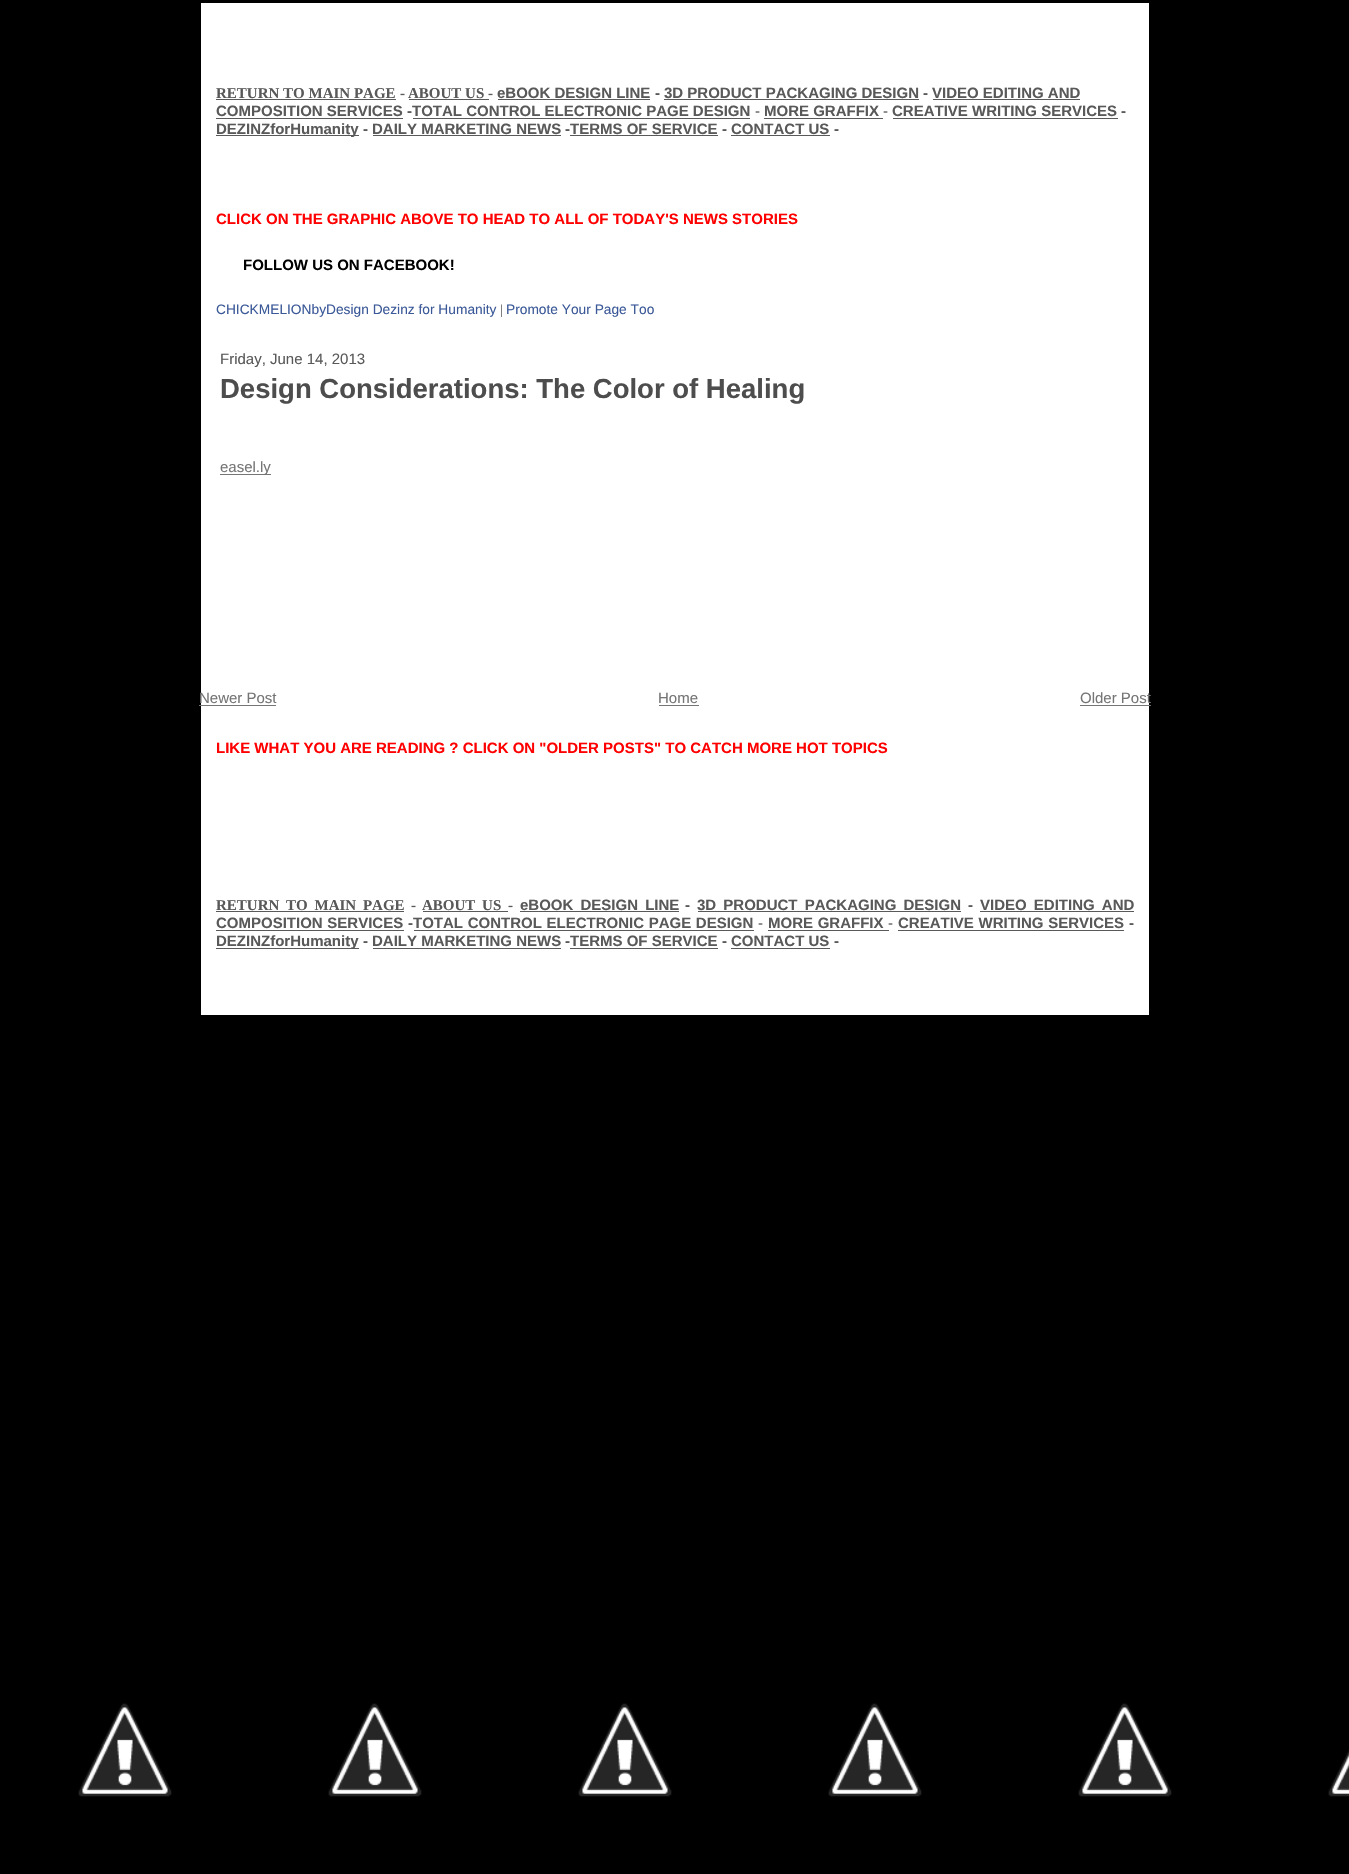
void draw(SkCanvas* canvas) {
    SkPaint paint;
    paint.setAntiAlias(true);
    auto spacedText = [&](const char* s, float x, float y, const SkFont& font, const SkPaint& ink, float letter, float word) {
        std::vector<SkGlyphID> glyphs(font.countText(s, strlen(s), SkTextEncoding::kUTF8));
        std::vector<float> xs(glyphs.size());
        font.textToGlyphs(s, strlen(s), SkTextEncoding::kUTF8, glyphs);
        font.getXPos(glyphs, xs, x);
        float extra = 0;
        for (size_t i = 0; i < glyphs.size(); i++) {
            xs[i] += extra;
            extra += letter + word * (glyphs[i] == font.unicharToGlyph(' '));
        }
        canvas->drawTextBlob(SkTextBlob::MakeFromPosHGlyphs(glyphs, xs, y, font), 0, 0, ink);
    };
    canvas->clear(0xFF000000);
    canvas->drawImageRect(SkImages::DeferredFromEncodedData(SkData::MakeFromFileName("img1.png")), SkRect::MakeXYWH(78, 1703, 1271, 94), SkSamplingOptions());
    paint.setColor(0xFFFFFFFF);
    canvas->drawRect(SkRect::MakeXYWH(201, 3, 948, 1012), paint);
    SkFont font1(fontMgr->matchFamilyStyle("Liberation Serif", SkFontStyle::Bold()), 15);
    font1.setSubpixel(true);
    paint.setColor(0xFF595959);
    canvas->drawString("RETURN TO MAIN PAGE", 216, 98, font1, paint);
    canvas->drawRect(SkRect::MakeXYWH(216, 99, 180, 1), paint);
    canvas->drawString("-", 400, 98, font1, paint);
    canvas->drawString("ABOUT US", 408, 98, font1, paint);
    canvas->drawString("-", 488, 98, font1, paint);
    canvas->drawRect(SkRect::MakeXYWH(409, 99, 80, 1), paint);
    SkFont font2(fontMgr->matchFamilyStyle("Liberation Sans", SkFontStyle::Bold()), 15);
    font2.setSubpixel(true);
    canvas->drawString("eBOOK DESIGN LINE", 497, 98, font2, paint);
    canvas->drawRect(SkRect::MakeXYWH(498, 99, 152, 1), paint);
    canvas->drawString("-", 655, 98, font2, paint);
    canvas->drawString("3D PRODUCT PACKAGING DESIGN", 664, 98, font2, paint);
    canvas->drawRect(SkRect::MakeXYWH(664, 99, 255, 1), paint);
    canvas->drawString("-", 923, 98, font2, paint);
    canvas->drawString("VIDEO EDITING AND", 932, 98, font2, paint);
    canvas->drawRect(SkRect::MakeXYWH(933, 99, 147, 1), paint);
    canvas->drawString("COMPOSITION SERVICES", 216, 116, font2, paint);
    canvas->drawRect(SkRect::MakeXYWH(216, 118, 187, 1), paint);
    canvas->drawString("-", 407, 116, font2, paint);
    canvas->drawRect(SkRect::MakeXYWH(413, 118, 337, 1), paint);
    canvas->drawString("TOTAL CONTROL ELECTRONIC PAGE DESIGN", 412, 116, font2, paint);
    SkFont font3(fontMgr->matchFamilyStyle("Liberation Sans", SkFontStyle::Normal()), 15);
    font3.setSubpixel(true);
    canvas->drawString("-", 755, 116, font3, paint);
    canvas->drawString("MORE GRAFFIX", 764, 116, font2, paint);
    canvas->drawRect(SkRect::MakeXYWH(764, 118, 119, 1), paint);
    canvas->drawString("-", 883, 116, font3, paint);
    canvas->drawString("CREATIVE WRITING SERVICES", 892, 116, font2, paint);
    canvas->drawRect(SkRect::MakeXYWH(893, 118, 225, 1), paint);
    canvas->drawString("-", 1121, 116, font2, paint);
    canvas->drawRect(SkRect::MakeXYWH(216, 135, 143, 1), paint);
    canvas->drawString("DEZINZforHumanity", 216, 134, font2, paint);
    canvas->drawString("-", 363, 134, font2, paint);
    canvas->drawString("DAILY MARKETING NEWS", 372, 134, font2, paint);
    canvas->drawRect(SkRect::MakeXYWH(373, 135, 188, 1), paint);
    canvas->drawString("-", 565, 134, font2, paint);
    canvas->drawString("TERMS OF SERVICE", 570, 134, font2, paint);
    canvas->drawRect(SkRect::MakeXYWH(570, 135, 148, 1), paint);
    canvas->drawString("-", 722, 134, font2, paint);
    canvas->drawString("CONTACT US", 731, 134, font2, paint);
    canvas->drawRect(SkRect::MakeXYWH(731, 135, 99, 1), paint);
    canvas->drawString("-", 834, 134, font2, paint);
    paint.setColor(0xFFFF0000);
    canvas->drawString("CLICK ON THE GRAPHIC ABOVE TO HEAD TO ALL OF TODAY'S NEWS STORIES", 216, 224, font2, paint);
    paint.setColor(0xFF000000);
    canvas->drawString("FOLLOW US ON FACEBOOK!", 243, 270, font2, paint);
    SkFont font4(fontMgr->matchFamilyStyle("Liberation Sans", SkFontStyle::Normal()), 13.75f);
    font4.setSubpixel(true);
    paint.setColor(0xFF3B5998);
    canvas->drawString("CHICKMELIONbyDesign Dezinz for Humanity", 216, 314, font4, paint);
    SkFont font5(fontMgr->matchFamilyStyle("Liberation Serif", SkFontStyle::Normal()), 13.75f);
    font5.setSubpixel(true);
    paint.setColor(0xFF595959);
    canvas->drawString("|", 500, 314, font5, paint);
    paint.setColor(0xFF3B5998);
    canvas->drawString("Promote Your Page Too", 506, 314, font4, paint);
    paint.setColor(0xFF595959);
    canvas->drawString("Friday, June 14, 2013", 220, 364, font3, paint);
    SkFont font6(fontMgr->matchFamilyStyle("Liberation Sans", SkFontStyle::Bold()), 27.5f);
    font6.setSubpixel(true);
    paint.setColor(0xFF4D4D4D);
    canvas->drawString("Design Considerations: The Color of Healing", 220, 398, font6, paint);
    paint.setColor(0xFF757575);
    canvas->drawRect(SkRect::MakeXYWH(220, 474, 51, 1), paint);
    canvas->drawString("easel.ly", 220, 472, font3, paint);
    canvas->drawString("Newer Post", 199, 703, font3, paint);
    canvas->drawRect(SkRect::MakeXYWH(199, 705, 77, 1), paint);
    canvas->drawString("Home", 658, 703, font3, paint);
    canvas->drawRect(SkRect::MakeXYWH(659, 705, 40, 1), paint);
    canvas->drawString("Older Post", 1080, 703, font3, paint);
    canvas->drawRect(SkRect::MakeXYWH(1080, 705, 71, 1), paint);
    paint.setColor(0xFFFF0000);
    canvas->drawString("LIKE WHAT YOU ARE READING ? CLICK ON \"OLDER POSTS\" TO CATCH MORE HOT TOPICS", 216, 753, font2, paint);
    paint.setColor(0xFF595959);
    spacedText("RETURN TO MAIN PAGE", 216, 910, font1, paint, 0, 3);
    canvas->drawRect(SkRect::MakeXYWH(216, 911, 188, 1), paint);
    canvas->drawString("-", 411, 910, font1, paint);
    spacedText("ABOUT US", 422, 910, font1, paint, 0, 3);
    canvas->drawString("-", 508, 910, font1, paint);
    canvas->drawRect(SkRect::MakeXYWH(423, 911, 85, 1), paint);
    spacedText("eBOOK DESIGN LINE", 520, 910, font2, paint, 0, 3);
    canvas->drawRect(SkRect::MakeXYWH(520, 911, 159, 1), paint);
    canvas->drawString("-", 685, 910, font2, paint);
    spacedText("3D PRODUCT PACKAGING DESIGN", 697, 910, font2, paint, 0, 3);
    canvas->drawRect(SkRect::MakeXYWH(698, 911, 263, 1), paint);
    canvas->drawString("-", 968, 910, font2, paint);
    spacedText("VIDEO EDITING AND", 980, 910, font2, paint, 0, 3);
    canvas->drawRect(SkRect::MakeXYWH(980, 911, 154, 1), paint);
    spacedText("COMPOSITION SERVICES", 216, 928, font2, paint, 0, 0.5f);
    canvas->drawRect(SkRect::MakeXYWH(216, 930, 188, 1), paint);
    canvas->drawString("-", 408, 928, font2, paint);
    canvas->drawRect(SkRect::MakeXYWH(414, 930, 340, 1), paint);
    spacedText("TOTAL CONTROL ELECTRONIC PAGE DESIGN", 413, 928, font2, paint, 0, 0.5f);
    canvas->drawString("-", 758, 928, font3, paint);
    spacedText("MORE GRAFFIX", 768, 928, font2, paint, 0, 0.5f);
    canvas->drawRect(SkRect::MakeXYWH(768, 930, 121, 1), paint);
    canvas->drawString("-", 888, 928, font3, paint);
    spacedText("CREATIVE WRITING SERVICES", 898, 928, font2, paint, 0, 0.5f);
    canvas->drawRect(SkRect::MakeXYWH(898, 930, 226, 1), paint);
    canvas->drawString("-", 1129, 928, font2, paint);
    canvas->drawRect(SkRect::MakeXYWH(216, 948, 143, 1), paint);
    canvas->drawString("DEZINZforHumanity", 216, 946, font2, paint);
    canvas->drawString("-", 363, 946, font2, paint);
    canvas->drawString("DAILY MARKETING NEWS", 372, 946, font2, paint);
    canvas->drawRect(SkRect::MakeXYWH(373, 948, 188, 1), paint);
    canvas->drawString("-", 565, 946, font2, paint);
    canvas->drawString("TERMS OF SERVICE", 570, 946, font2, paint);
    canvas->drawRect(SkRect::MakeXYWH(570, 948, 148, 1), paint);
    canvas->drawString("-", 722, 946, font2, paint);
    canvas->drawString("CONTACT US", 731, 946, font2, paint);
    canvas->drawRect(SkRect::MakeXYWH(731, 948, 99, 1), paint);
    canvas->drawString("-", 834, 946, font2, paint);
}
